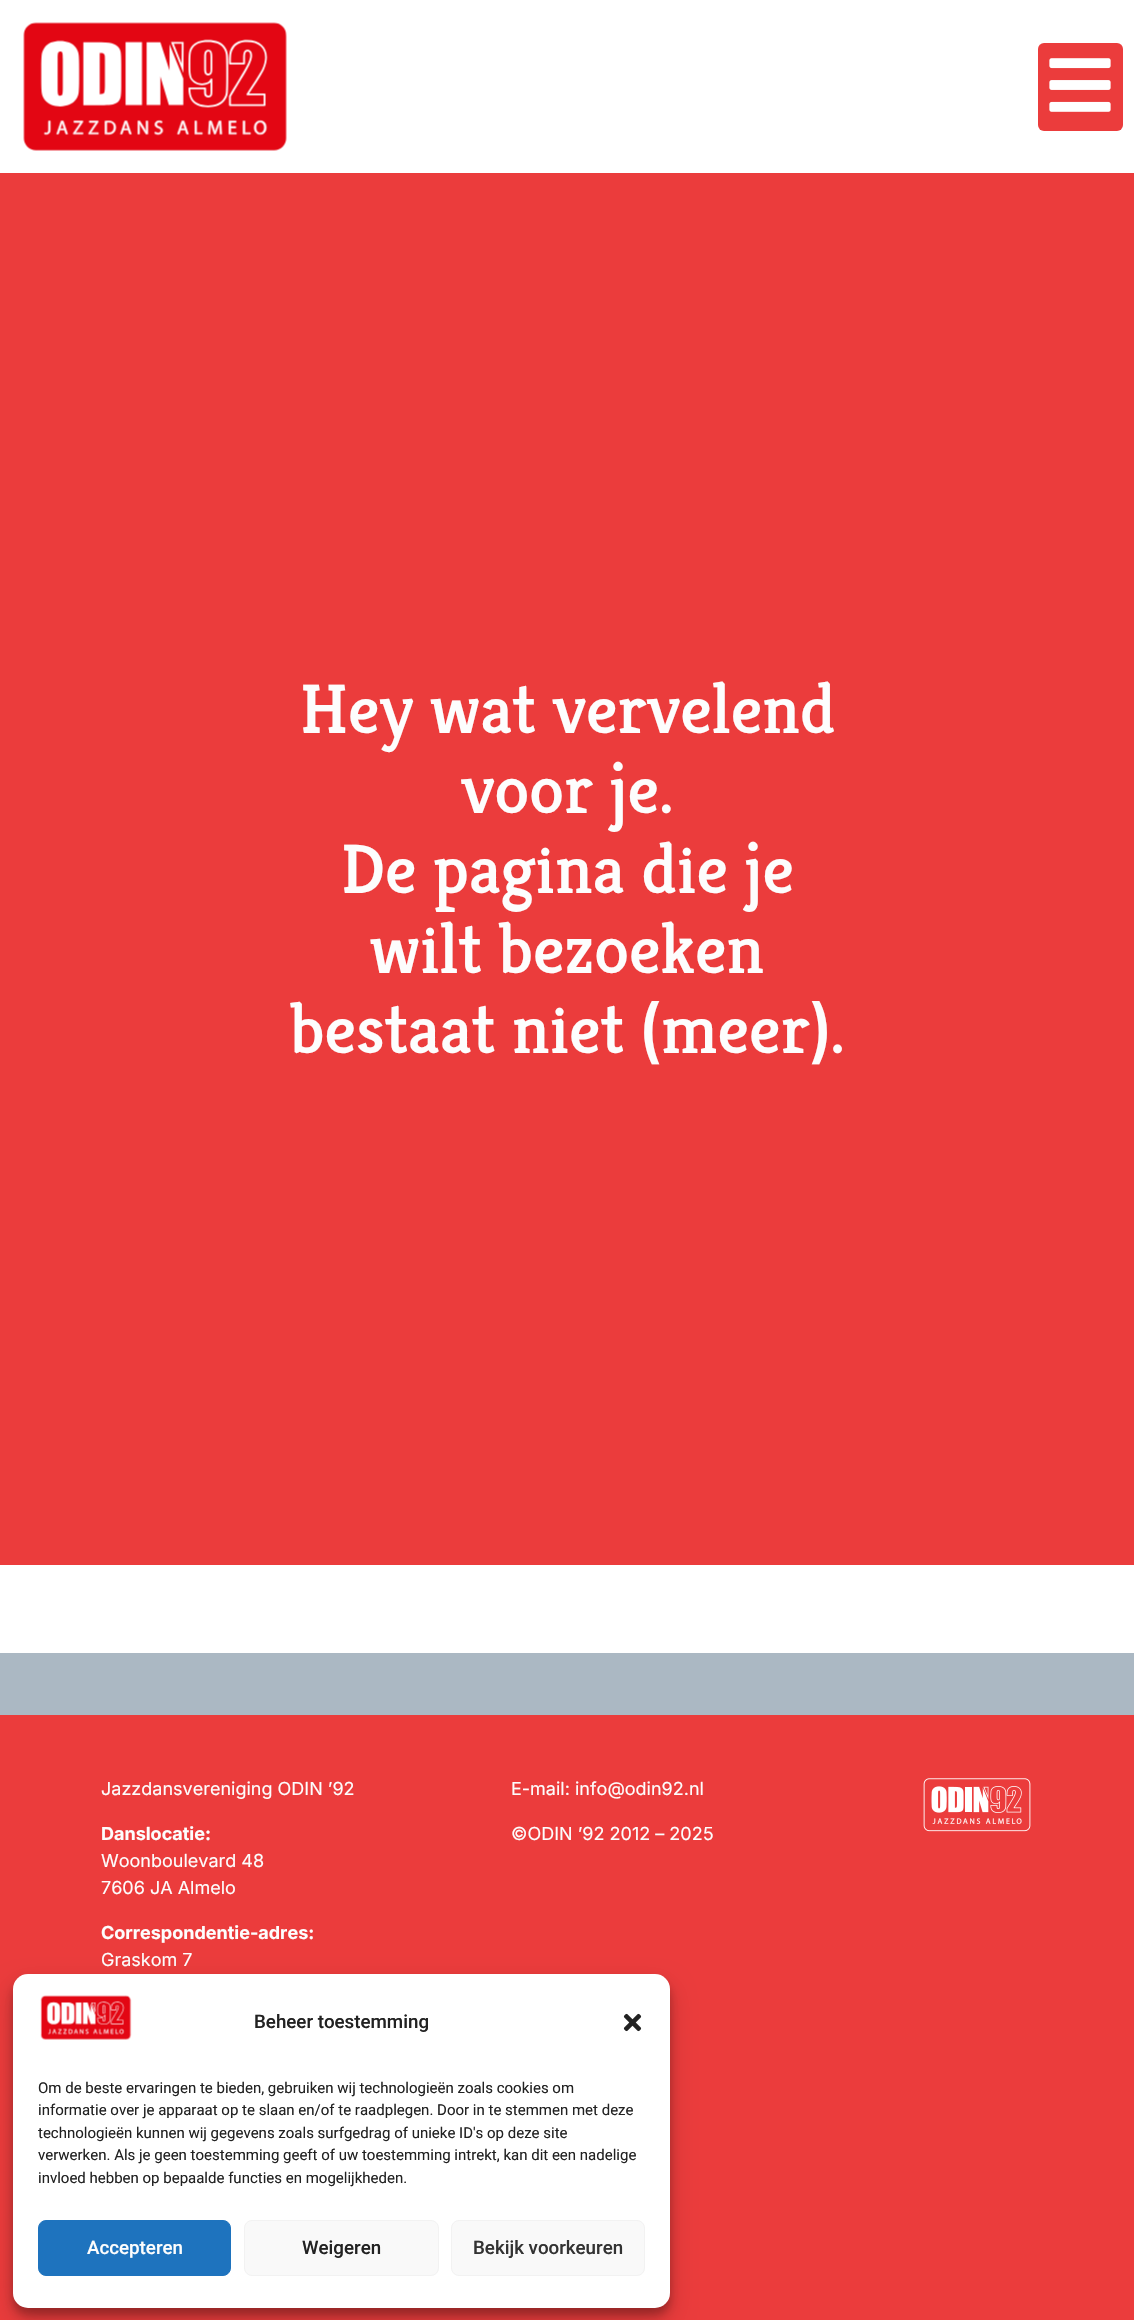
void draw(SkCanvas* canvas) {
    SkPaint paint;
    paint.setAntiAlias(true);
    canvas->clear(0xFFFFFFFF);
    canvas->drawImageRect(SkImages::DeferredFromEncodedData(SkData::MakeFromFileName("img1.png")), SkRect::MakeXYWH(23, 22, 264, 129), SkSamplingOptions());
    paint.setColor(0xFFEB3C3C);
    canvas->drawRoundRect(SkRect::MakeXYWH(1038, 43, 85, 88), 6, 6, paint);
    canvas->drawImageRect(SkImages::DeferredFromEncodedData(SkData::MakeFromFileName("img2.png")), SkRect::MakeXYWH(1049, 58, 62, 54), SkSamplingOptions());
    canvas->drawRect(SkRect::MakeXYWH(0, 173, 1134, 1392), paint);
    SkFont font1(fontMgr->matchFamilyStyle("Kreon", SkFontStyle(500, SkFontStyle::kNormal_Width, SkFontStyle::kUpright_Slant)), 70);
    font1.setSubpixel(true);
    paint.setColor(0xFFFDFDFD);
    canvas->drawString("Hey wat vervelend", 300, 733, font1, paint);
    canvas->drawString("voor je.", 461, 813, font1, paint);
    canvas->drawString("De pagina die je", 341, 893, font1, paint);
    canvas->drawString("wilt bezoeken", 370, 973, font1, paint);
    canvas->drawString("bestaat niet (meer).", 290, 1053, font1, paint);
    paint.setColor(0xFFABB8C3);
    canvas->drawRect(SkRect::MakeXYWH(0, 1653, 1134, 62), paint);
    paint.setColor(0xFFEB3C3C);
    canvas->drawRect(SkRect::MakeXYWH(0, 1715, 1134, 605), paint);
    SkFont font2(fontMgr->matchFamilyStyle("Inter", SkFontStyle::Normal()), 18);
    font2.setSubpixel(true);
    paint.setColor(0xFFFDFDFD);
    canvas->drawString("Jazzdansvereniging ODIN ’92", 101, 1795, font2, paint);
    SkFont font3(fontMgr->matchFamilyStyle("Inter", SkFontStyle::Bold()), 18);
    font3.setSubpixel(true);
    canvas->drawString("Danslocatie:", 101, 1840, font3, paint);
    canvas->drawString("Woonboulevard 48", 101, 1867, font2, paint);
    canvas->drawString("7606 JA Almelo", 101, 1894, font2, paint);
    canvas->drawString("Correspondentie-adres:", 101, 1939, font3, paint);
    canvas->drawString("Graskom 7", 101, 1966, font2, paint);
    canvas->drawString("E-mail: info@odin92.nl", 511, 1795, font2, paint);
    canvas->drawString("©ODIN ’92 2012 – 2025", 511, 1840, font2, paint);
    canvas->drawImageRect(SkImages::DeferredFromEncodedData(SkData::MakeFromFileName("img3.png")), SkRect::MakeXYWH(923, 1778, 108, 54), SkSamplingOptions());
    paint.setColor(0x3B000000);
    paint.setMaskFilter(SkMaskFilter::MakeBlur(kNormal_SkBlurStyle, 4));
    canvas->drawRoundRect(SkRect::MakeXYWH(13, 1981, 657, 334), 15, 15, paint);
    paint.setMaskFilter(nullptr);
    paint.setColor(0x30000000);
    paint.setMaskFilter(SkMaskFilter::MakeBlur(kNormal_SkBlurStyle, 12.5f));
    canvas->drawRoundRect(SkRect::MakeXYWH(13, 1986, 657, 334), 15, 15, paint);
    paint.setMaskFilter(nullptr);
    paint.setColor(0xFFFFFFFF);
    canvas->drawRoundRect(SkRect::MakeXYWH(13, 1974, 657, 334), 15, 15, paint);
    canvas->drawImageRect(SkImages::DeferredFromEncodedData(SkData::MakeFromFileName("img4.png")), SkRect::MakeXYWH(40, 1995, 92, 45), SkSamplingOptions());
    SkFont font4(fontMgr->matchFamilyStyle("Roboto", SkFontStyle(500, SkFontStyle::kNormal_Width, SkFontStyle::kUpright_Slant)), 18.75f);
    font4.setSubpixel(true);
    paint.setColor(0xFF222222);
    canvas->drawString("Beheer toestemming", 254, 2028, font4, paint);
    canvas->drawImageRect(SkImages::DeferredFromEncodedData(SkData::MakeFromFileName("img5.png")), SkRect::MakeXYWH(623, 2013, 19, 19), SkSamplingOptions());
    SkFont font5(fontMgr->matchFamilyStyle("Roboto", SkFontStyle::Normal()), 15);
    font5.setSubpixel(true);
    canvas->drawString("Om de beste ervaringen te bieden, gebruiken wij technologieën zoals cookies om", 38, 2093, font5, paint);
    canvas->drawString("informatie over je apparaat op te slaan en/of te raadplegen. Door in te stemmen met deze", 38, 2115, font5, paint);
    canvas->drawString("technologieën kunnen wij gegevens zoals surfgedrag of unieke ID's op deze site", 38, 2138, font5, paint);
    canvas->drawString("verwerken. Als je geen toestemming geeft of uw toestemming intrekt, kan dit een nadelige", 38, 2160, font5, paint);
    canvas->drawString("invloed hebben op bepaalde functies en mogelijkheden.", 38, 2183, font5, paint);
    paint.setColor(0xFF1E73BE);
    canvas->drawRoundRect(SkRect::MakeXYWH(38.5f, 2220.5f, 192, 55), 7.5f, 7.5f, paint);
    paint.setStyle(SkPaint::kStroke_Style);
    paint.setStrokeWidth(1);
    canvas->drawRoundRect(SkRect::MakeXYWH(38.5f, 2220.5f, 192, 55), 7.5f, 7.5f, paint);
    paint.setStyle(SkPaint::kFill_Style);
    paint.setColor(0xFFFDFDFD);
    canvas->drawString("Accepteren", 87, 2254, font4, paint);
    paint.setColor(0xFFF9F9F9);
    canvas->drawRoundRect(SkRect::MakeXYWH(244.5f, 2220.5f, 194, 55), 7.5f, 7.5f, paint);
    paint.setStyle(SkPaint::kStroke_Style);
    paint.setColor(0xFFF2F2F2);
    canvas->drawRoundRect(SkRect::MakeXYWH(244.5f, 2220.5f, 194, 55), 7.5f, 7.5f, paint);
    paint.setStyle(SkPaint::kFill_Style);
    paint.setColor(0xFF222222);
    canvas->drawString("Weigeren", 302, 2254, font4, paint);
    paint.setColor(0xFFF9F9F9);
    canvas->drawRoundRect(SkRect::MakeXYWH(451.5f, 2220.5f, 193, 55), 7.5f, 7.5f, paint);
    paint.setStyle(SkPaint::kStroke_Style);
    paint.setColor(0xFFF2F2F2);
    canvas->drawRoundRect(SkRect::MakeXYWH(451.5f, 2220.5f, 193, 55), 7.5f, 7.5f, paint);
    paint.setStyle(SkPaint::kFill_Style);
    paint.setColor(0xFF333333);
    canvas->drawString("Bekijk voorkeuren", 473, 2254, font4, paint);
}
